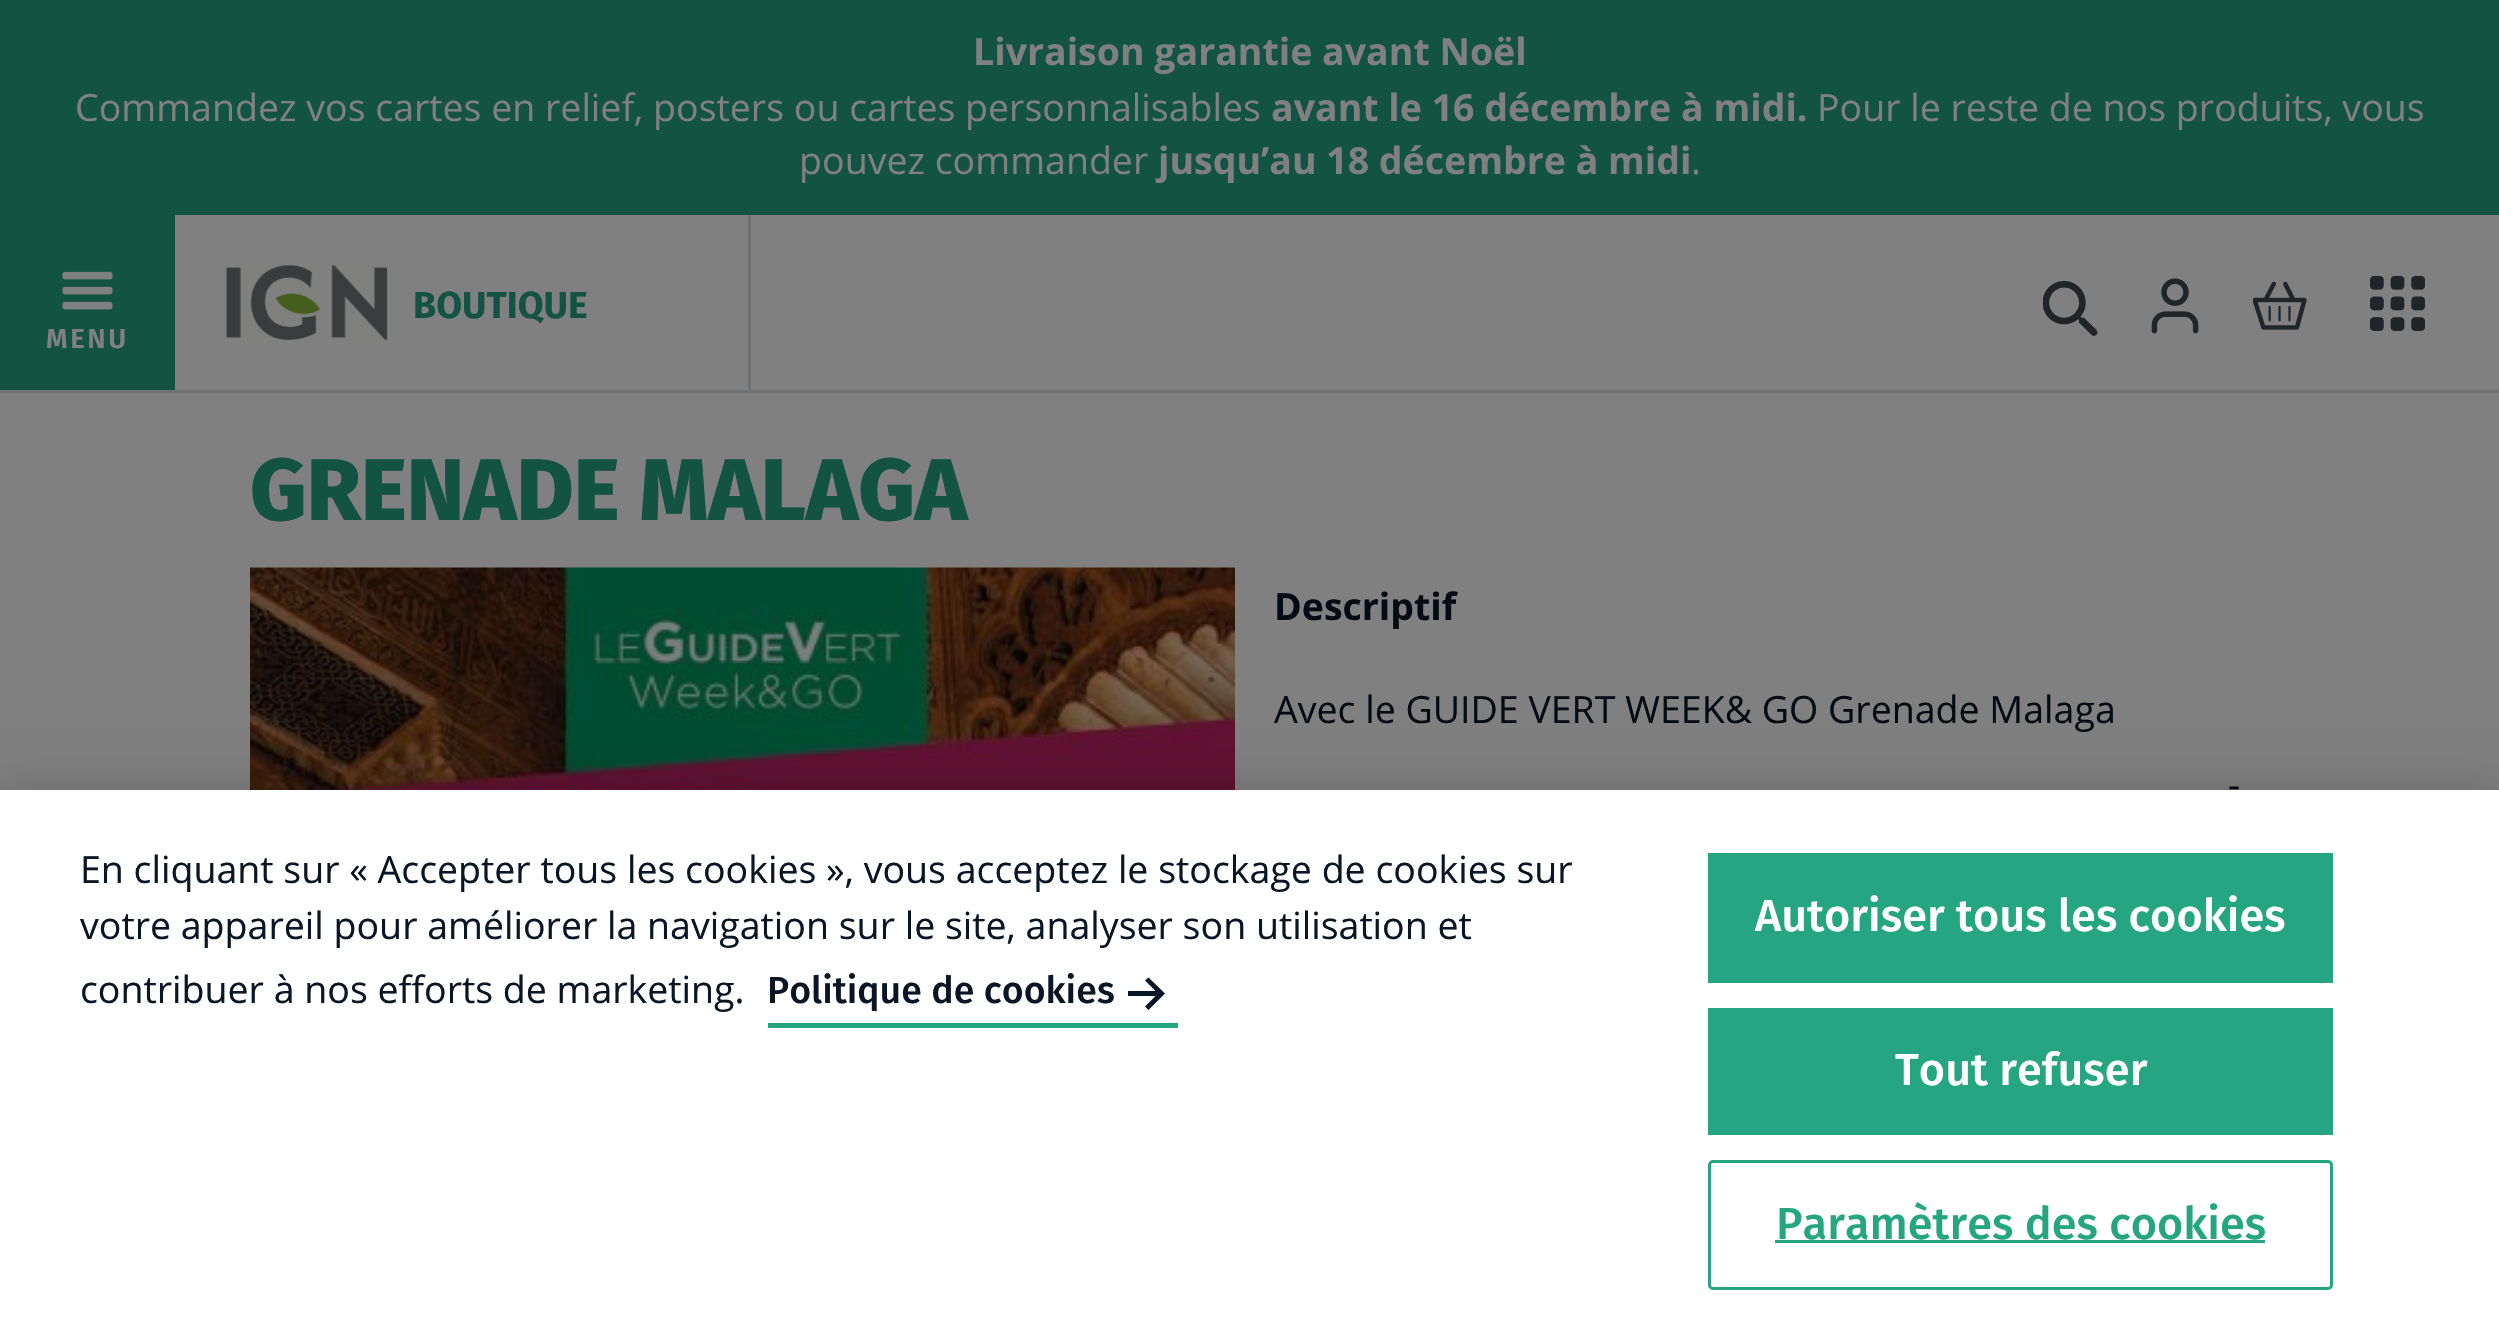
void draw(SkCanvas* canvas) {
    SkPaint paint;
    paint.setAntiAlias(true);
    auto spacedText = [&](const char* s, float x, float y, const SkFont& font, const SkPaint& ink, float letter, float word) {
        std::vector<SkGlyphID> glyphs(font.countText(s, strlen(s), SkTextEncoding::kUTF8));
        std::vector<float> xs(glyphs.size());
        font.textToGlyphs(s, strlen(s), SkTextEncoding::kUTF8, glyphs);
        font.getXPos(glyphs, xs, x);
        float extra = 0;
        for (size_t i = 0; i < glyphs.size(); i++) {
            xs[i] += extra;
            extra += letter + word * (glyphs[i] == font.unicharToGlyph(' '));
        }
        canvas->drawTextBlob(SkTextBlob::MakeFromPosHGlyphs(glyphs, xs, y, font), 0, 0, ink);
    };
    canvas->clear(0xFF808080);
    paint.setColor(0xFF135341);
    canvas->drawRect(SkRect::MakeXYWH(0, 0, 2499, 215), paint);
    SkFont font1(fontMgr->matchFamilyStyle("Open Sans", SkFontStyle::Bold()), 37.5f);
    font1.setSubpixel(true);
    paint.setColor(0xFF808080);
    canvas->drawString("Livraison garantie avant Noël", 973, 65, font1, paint);
    SkFont font2(fontMgr->matchFamilyStyle("Open Sans", SkFontStyle::Normal()), 37.5f);
    font2.setSubpixel(true);
    canvas->drawString("Commandez vos cartes en relief, posters ou cartes personnalisables", 75, 121, font2, paint);
    canvas->drawString("avant le 16 décembre à midi.", 1271, 121, font1, paint);
    canvas->drawString("Pour le reste de nos produits, vous", 1817, 121, font2, paint);
    canvas->drawString("pouvez commander", 799, 174, font2, paint);
    canvas->drawString("jusqu’au 18 décembre à midi", 1158, 174, font1, paint);
    canvas->drawString(".", 1691, 174, font2, paint);
    paint.setColor(0xFF6F7173);
    canvas->drawRect(SkRect::MakeXYWH(0, 390, 2499, 3), paint);
    canvas->drawRect(SkRect::MakeXYWH(748, 215, 3, 175), paint);
    canvas->drawImageRect(SkImages::DeferredFromEncodedData(SkData::MakeFromFileName("img1.png")), SkRect::MakeXYWH(225, 265, 163, 75), SkSamplingOptions());
    SkFont font3(fontMgr->matchFamilyStyle("Fira Sans", SkFontStyle::Bold()), 37.5f);
    font3.setSubpixel(true);
    paint.setColor(0xFF135341);
    canvas->drawString("BOUTIQUE", 413, 318, font3, paint);
    canvas->drawImageRect(SkImages::DeferredFromEncodedData(SkData::MakeFromFileName("img2.png")), SkRect::MakeXYWH(2043, 280, 55, 56), SkSamplingOptions());
    canvas->drawImageRect(SkImages::DeferredFromEncodedData(SkData::MakeFromFileName("img3.png")), SkRect::MakeXYWH(2151, 278, 48, 56), SkSamplingOptions());
    canvas->drawImageRect(SkImages::DeferredFromEncodedData(SkData::MakeFromFileName("img4.png")), SkRect::MakeXYWH(2253, 281, 54, 49), SkSamplingOptions());
    canvas->drawImageRect(SkImages::DeferredFromEncodedData(SkData::MakeFromFileName("img5.png")), SkRect::MakeXYWH(2370, 275, 55, 56), SkSamplingOptions());
    canvas->drawRect(SkRect::MakeXYWH(0, 215, 175, 175), paint);
    canvas->drawImageRect(SkImages::DeferredFromEncodedData(SkData::MakeFromFileName("img6.png")), SkRect::MakeXYWH(62, 271, 51, 39), SkSamplingOptions());
    SkFont font4(fontMgr->matchFamilyStyle("Fira Sans", SkFontStyle(600, SkFontStyle::kNormal_Width, SkFontStyle::kUpright_Slant)), 27.5f);
    font4.setSubpixel(true);
    paint.setColor(0xFF808080);
    spacedText("MENU", 46, 348, font4, paint, 2.5f, 0);
    SkFont font5(fontMgr->matchFamilyStyle("Fira Sans", SkFontStyle(800, SkFontStyle::kNormal_Width, SkFontStyle::kUpright_Slant)), 87.5f);
    font5.setSubpixel(true);
    paint.setColor(0xFF135341);
    canvas->drawString("GRENADE MALAGA", 250, 520, font5, paint);
    canvas->drawImageRect(SkImages::DeferredFromEncodedData(SkData::MakeFromFileName("img7.png")), SkRect::MakeXYWH(250, 567, 985, 223), SkSamplingOptions());
    paint.setColor(0xFF050B13);
    canvas->drawString("Descriptif", 1274, 620, font1, paint);
    canvas->drawString("Avec le GUIDE VERT WEEK& GO Grenade Malaga", 1274, 723, font2, paint);
    canvas->drawString("-", 2228, 798, font2, paint);
    paint.setColor(0x33000000);
    paint.setMaskFilter(SkMaskFilter::MakeBlur(kNormal_SkBlurStyle, 22.5f));
    canvas->drawRect(SkRect::MakeXYWH(0, 790, 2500, 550), paint);
    paint.setMaskFilter(nullptr);
    paint.setColor(0xFFFFFFFF);
    canvas->drawRect(SkRect::MakeXYWH(0, 790, 2499, 549), paint);
    paint.setColor(0xFF091625);
    canvas->drawString("En cliquant sur « Accepter tous les cookies », vous acceptez le stockage de cookies sur", 80, 883, font2, paint);
    canvas->drawString("votre appareil pour améliorer la navigation sur le site, analyser son utilisation et", 80, 939, font2, paint);
    canvas->drawString("contribuer à nos efforts de marketing.", 80, 1003, font2, paint);
    SkFont font6(fontMgr->matchFamilyStyle("Fira Sans", SkFontStyle(500, SkFontStyle::kNormal_Width, SkFontStyle::kUpright_Slant)), 37.5f);
    font6.setSubpixel(true);
    canvas->drawString("Politique de cookies", 767, 1003, font6, paint);
    canvas->save();
    canvas->clipRect(SkRect::MakeXYWH(1128, 975, 37, 38));
    canvas->drawPath(SkPathBuilder().moveTo(1148.5f, 977.5f).lineTo(1165, 993.5f).lineTo(1148.5f, 1010).lineTo(1145, 1006.5f).lineTo(1155.5f, 996).lineTo(1127.5f, 996).lineTo(1127.5f, 991).lineTo(1155.5f, 991).lineTo(1145, 980.5f).close().detach(), paint);
    canvas->restore();
    paint.setColor(0xFF26A581);
    canvas->drawRect(SkRect::MakeXYWH(768, 1023, 410, 5), paint);
    canvas->drawRect(SkRect::MakeXYWH(1708, 853, 625, 130), paint);
    SkFont font7(fontMgr->matchFamilyStyle("Fira Sans", SkFontStyle(500, SkFontStyle::kNormal_Width, SkFontStyle::kUpright_Slant)), 45);
    font7.setSubpixel(true);
    paint.setColor(0xFFFFFFFF);
    canvas->drawString("Autoriser tous les cookies", 1755, 931, font7, paint);
    paint.setColor(0xFF26A581);
    canvas->drawRect(SkRect::MakeXYWH(1708, 1008, 625, 127), paint);
    paint.setColor(0xFFFFFFFF);
    canvas->drawString("Tout refuser", 1895, 1085, font7, paint);
    paint.setStyle(SkPaint::kStroke_Style);
    paint.setStrokeWidth(3);
    paint.setColor(0xFF26A581);
    canvas->drawRoundRect(SkRect::MakeXYWH(1709.5f, 1161.5f, 622, 127), 3.5f, 3.5f, paint);
    paint.setStyle(SkPaint::kFill_Style);
    canvas->drawString("Paramètres des cookies", 1776, 1239, font7, paint);
    canvas->drawRect(SkRect::MakeXYWH(1775, 1240, 490, 3), paint);
}
